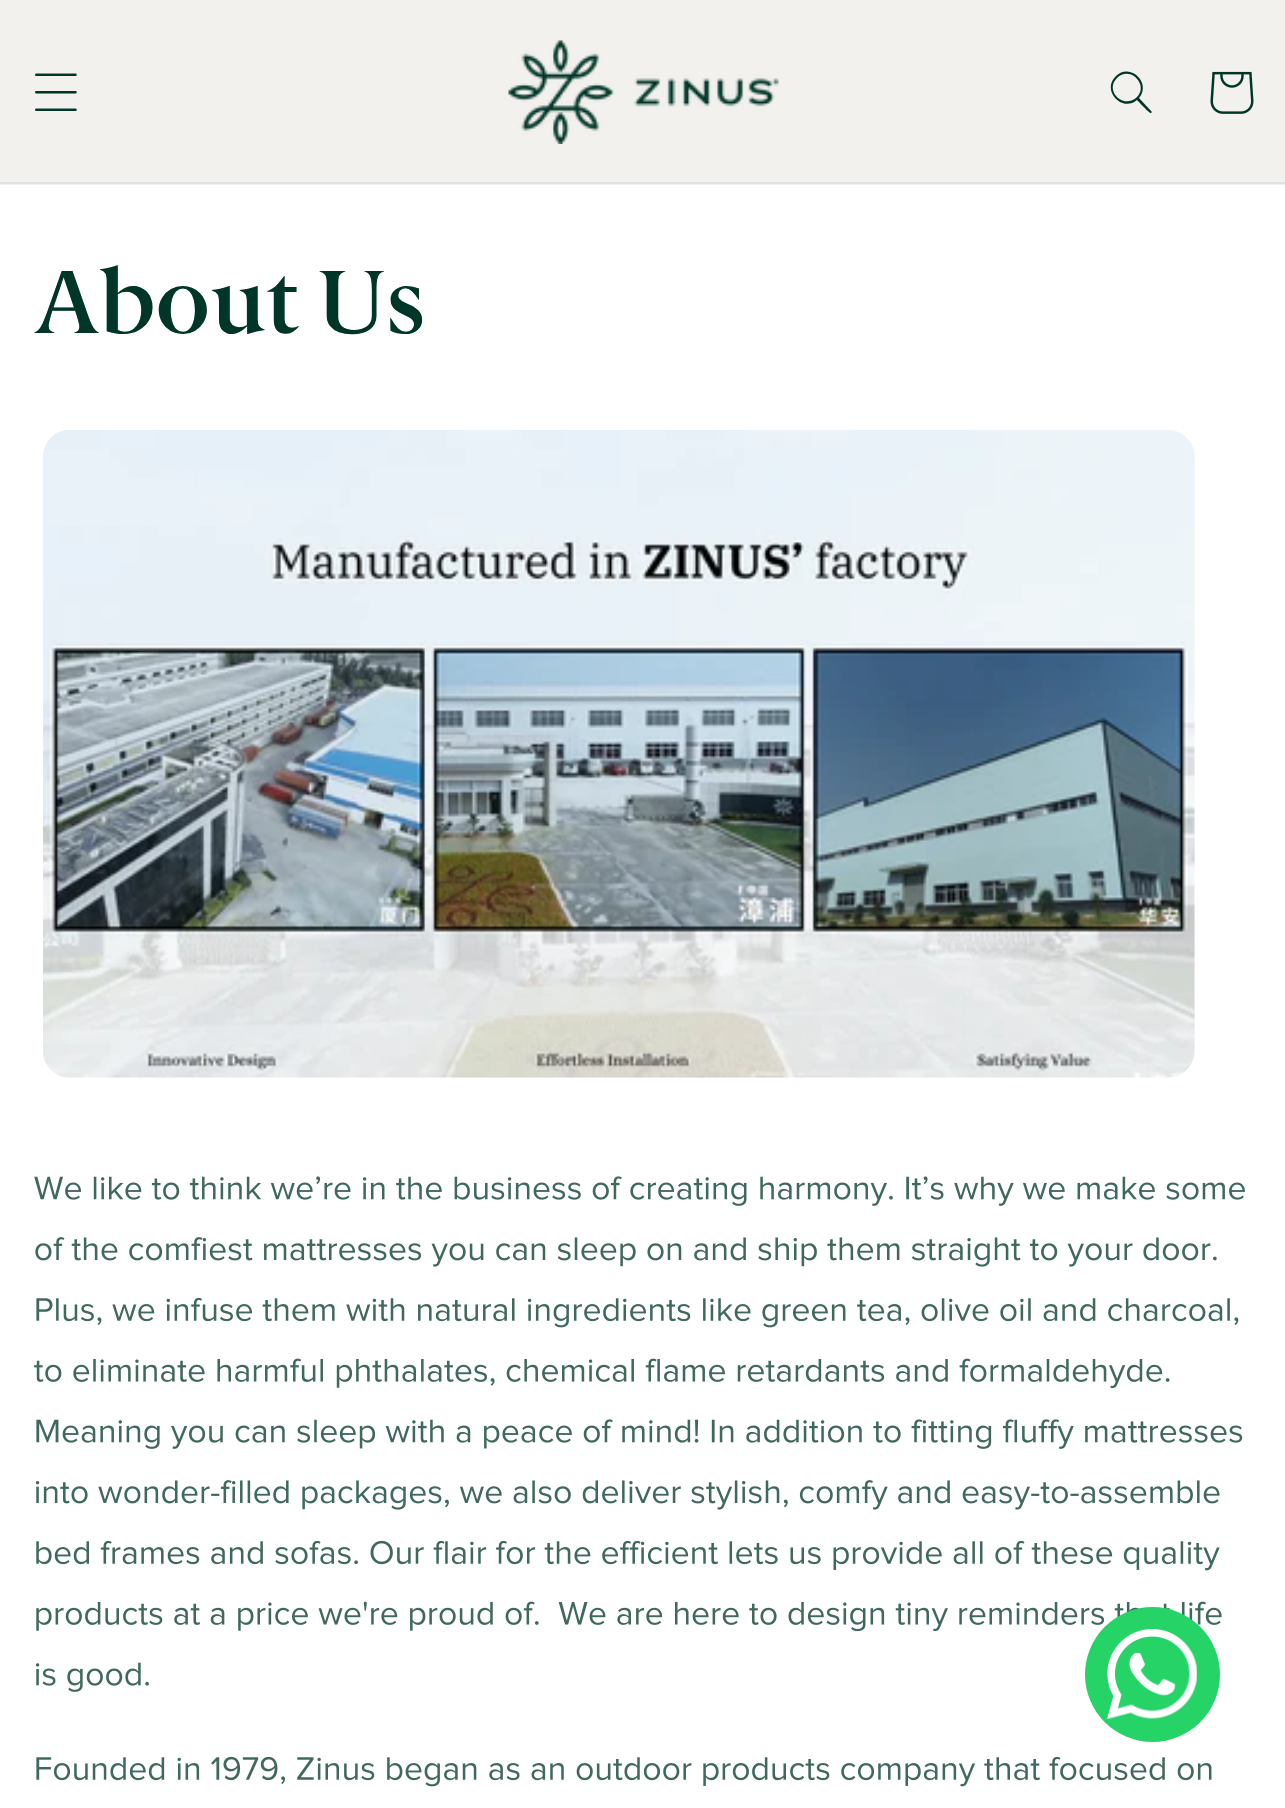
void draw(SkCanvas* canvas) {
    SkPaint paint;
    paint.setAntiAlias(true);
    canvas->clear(0xFFFFFFFF);
    paint.setColor(0xFFF2F1EE);
    canvas->drawRect(SkRect::MakeXYWH(0, 0, 1285, 185), paint);
    paint.setColor(0xFFDFE2DE);
    canvas->drawRect(SkRect::MakeXYWH(0, 182, 1285, 2), paint);
    canvas->drawImageRect(SkImages::DeferredFromEncodedData(SkData::MakeFromFileName("img1.png")), SkRect::MakeXYWH(35, 73, 42, 38), SkSamplingOptions());
    canvas->drawImageRect(SkImages::DeferredFromEncodedData(SkData::MakeFromFileName("img2.png")), SkRect::MakeXYWH(508, 40, 271, 104), SkSamplingOptions());
    paint.setColor(0xFF003628);
    canvas->drawPath(SkPathBuilder(SkPathFillType::kEvenOdd).moveTo(1137, 97).cubicTo(1124, 110, 1104, 91, 1117, 78).cubicTo(1130, 65, 1149, 85, 1137, 97).close().moveTo(1137, 100).cubicTo(1122, 113, 1101, 90, 1116, 76).cubicTo(1130, 62, 1152, 83, 1139, 98).lineTo(1152, 112).lineTo(1151, 113).cubicTo(1150, 114, 1139, 102, 1137, 100).close().detach(), paint);
    canvas->drawImageRect(SkImages::DeferredFromEncodedData(SkData::MakeFromFileName("img3.png")), SkRect::MakeXYWH(1210, 71, 44, 43), SkSamplingOptions());
    SkFont font1(fontMgr->matchFamilyStyle("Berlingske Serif", SkFontStyle(600, SkFontStyle::kNormal_Width, SkFontStyle::kUpright_Slant)), 90);
    font1.setSubpixel(true);
    canvas->drawString("About Us", 34, 333, font1, paint);
    canvas->drawImageRect(SkImages::DeferredFromEncodedData(SkData::MakeFromFileName("img4.png")), SkRect::MakeXYWH(43, 430, 1152, 648), SkSamplingOptions());
    canvas->drawImageRect(SkImages::DeferredFromEncodedData(SkData::MakeFromFileName("img5.png")), SkRect::MakeXYWH(34, 1176, 1211, 30), SkSamplingOptions());
    canvas->drawImageRect(SkImages::DeferredFromEncodedData(SkData::MakeFromFileName("img6.png")), SkRect::MakeXYWH(35, 1237, 1182, 30), SkSamplingOptions());
    canvas->drawImageRect(SkImages::DeferredFromEncodedData(SkData::MakeFromFileName("img7.png")), SkRect::MakeXYWH(36, 1297, 1203, 31), SkSamplingOptions());
    canvas->drawImageRect(SkImages::DeferredFromEncodedData(SkData::MakeFromFileName("img8.png")), SkRect::MakeXYWH(34, 1358, 1136, 31), SkSamplingOptions());
    canvas->drawImageRect(SkImages::DeferredFromEncodedData(SkData::MakeFromFileName("img9.png")), SkRect::MakeXYWH(36, 1419, 1207, 30), SkSamplingOptions());
    canvas->drawImageRect(SkImages::DeferredFromEncodedData(SkData::MakeFromFileName("img10.png")), SkRect::MakeXYWH(35, 1480, 1185, 30), SkSamplingOptions());
    canvas->drawImageRect(SkImages::DeferredFromEncodedData(SkData::MakeFromFileName("img11.png")), SkRect::MakeXYWH(36, 1540, 1184, 31), SkSamplingOptions());
    canvas->drawImageRect(SkImages::DeferredFromEncodedData(SkData::MakeFromFileName("img12.png")), SkRect::MakeXYWH(36, 1601, 1186, 31), SkSamplingOptions());
    canvas->drawImageRect(SkImages::DeferredFromEncodedData(SkData::MakeFromFileName("img13.png")), SkRect::MakeXYWH(35, 1662, 114, 30), SkSamplingOptions());
    canvas->drawImageRect(SkImages::DeferredFromEncodedData(SkData::MakeFromFileName("img14.png")), SkRect::MakeXYWH(36, 1756, 1176, 31), SkSamplingOptions());
    paint.setColor(0xFF25D366);
    canvas->drawCircle(1152.5f, 1674.5f, 67.5f, paint);
    canvas->drawImageRect(SkImages::DeferredFromEncodedData(SkData::MakeFromFileName("img15.png")), SkRect::MakeXYWH(1107, 1629, 90, 90), SkSamplingOptions());
}
